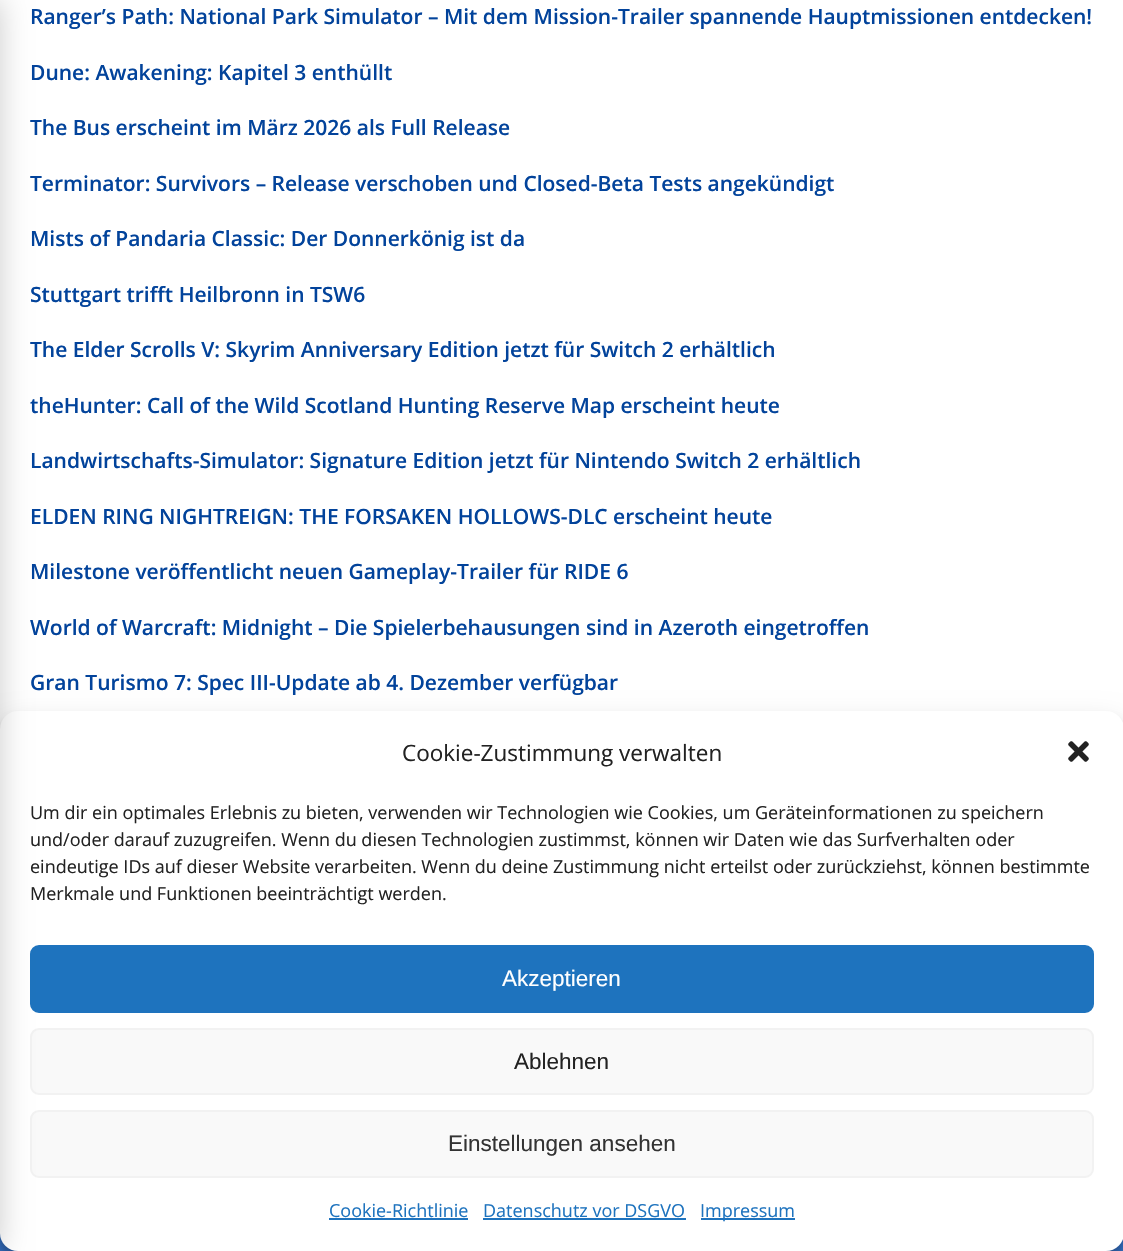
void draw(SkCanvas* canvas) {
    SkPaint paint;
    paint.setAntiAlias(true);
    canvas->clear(0xFFFFFFFF);
    paint.setColor(0xFF397AD6);
    canvas->drawRect(SkRect::MakeXYWH(0, 1233, 1123, 18), paint);
    paint.setColor(0x3B000000);
    paint.setMaskFilter(SkMaskFilter::MakeBlur(kNormal_SkBlurStyle, 4.5f));
    canvas->drawRoundRect(SkRect::MakeXYWH(0, 720, 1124, 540), 18, 18, paint);
    paint.setMaskFilter(nullptr);
    paint.setColor(0x30000000);
    paint.setMaskFilter(SkMaskFilter::MakeBlur(kNormal_SkBlurStyle, 15));
    canvas->drawRoundRect(SkRect::MakeXYWH(0, 726, 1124, 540), 18, 18, paint);
    paint.setMaskFilter(nullptr);
    paint.setColor(0xFFFFFFFF);
    canvas->drawRoundRect(SkRect::MakeXYWH(0, 711, 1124, 540), 18, 18, paint);
    paint.setColor(0xFF1E73BE);
    canvas->drawRoundRect(SkRect::MakeXYWH(31, 946, 1062, 66), 8, 8, paint);
    paint.setStyle(SkPaint::kStroke_Style);
    paint.setStrokeWidth(2);
    canvas->drawRoundRect(SkRect::MakeXYWH(31, 946, 1062, 66), 8, 8, paint);
    paint.setStyle(SkPaint::kFill_Style);
    paint.setColor(0xFFF9F9F9);
    canvas->drawRoundRect(SkRect::MakeXYWH(31, 1029, 1062, 65), 8, 8, paint);
    paint.setStyle(SkPaint::kStroke_Style);
    paint.setColor(0xFFF2F2F2);
    canvas->drawRoundRect(SkRect::MakeXYWH(31, 1029, 1062, 65), 8, 8, paint);
    paint.setStyle(SkPaint::kFill_Style);
    paint.setColor(0xFFF9F9F9);
    canvas->drawRoundRect(SkRect::MakeXYWH(31, 1111, 1062, 66), 8, 8, paint);
    paint.setStyle(SkPaint::kStroke_Style);
    paint.setColor(0xFFF2F2F2);
    canvas->drawRoundRect(SkRect::MakeXYWH(31, 1111, 1062, 66), 8, 8, paint);
    paint.setStyle(SkPaint::kFill_Style);
    paint.setColor(0x33000000);
    paint.setMaskFilter(SkMaskFilter::MakeBlur(kNormal_SkBlurStyle, 15));
    canvas->drawRect(SkRect::MakeXYWH(-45, 0, 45, 1251), paint);
    paint.setMaskFilter(nullptr);
    SkFont font1(fontMgr->matchFamilyStyle("Open Sans", SkFontStyle(600, SkFontStyle::kNormal_Width, SkFontStyle::kUpright_Slant)), 21);
    font1.setSubpixel(true);
    paint.setColor(0xFF02439B);
    canvas->drawString("Ranger’s Path: National Park Simulator – Mit dem Mission-Trailer spannende Hauptmissionen entdecken!", 30, 24, font1, paint);
    canvas->drawString("Dune: Awakening: Kapitel 3 enthüllt", 30, 80, font1, paint);
    canvas->drawString("The Bus erscheint im März 2026 als Full Release", 30, 135, font1, paint);
    canvas->drawString("Terminator: Survivors – Release verschoben und Closed-Beta Tests angekündigt", 30, 191, font1, paint);
    canvas->drawString("Mists of Pandaria Classic: Der Donnerkönig ist da", 30, 246, font1, paint);
    canvas->drawString("Stuttgart trifft Heilbronn in TSW6", 30, 302, font1, paint);
    canvas->drawString("The Elder Scrolls V: Skyrim Anniversary Edition jetzt für Switch 2 erhältlich", 30, 357, font1, paint);
    canvas->drawString("theHunter: Call of the Wild Scotland Hunting Reserve Map erscheint heute", 30, 413, font1, paint);
    canvas->drawString("Landwirtschafts-Simulator: Signature Edition jetzt für Nintendo Switch 2 erhältlich", 30, 468, font1, paint);
    canvas->drawString("ELDEN RING NIGHTREIGN: THE FORSAKEN HOLLOWS-DLC erscheint heute", 30, 524, font1, paint);
    canvas->drawString("Milestone veröffentlicht neuen Gameplay-Trailer für RIDE 6", 30, 579, font1, paint);
    canvas->drawString("World of Warcraft: Midnight – Die Spielerbehausungen sind in Azeroth eingetroffen", 30, 635, font1, paint);
    canvas->drawString("Gran Turismo 7: Spec III-Update ab 4. Dezember verfügbar", 30, 690, font1, paint);
    SkFont font2(fontMgr->matchFamilyStyle("Open Sans", SkFontStyle::Normal()), 22.5f);
    font2.setSubpixel(true);
    paint.setColor(0xFF222222);
    canvas->drawString("Cookie-Zustimmung verwalten", 402, 761, font2, paint);
    canvas->drawImageRect(SkImages::DeferredFromEncodedData(SkData::MakeFromFileName("img1.png")), SkRect::MakeXYWH(1068, 741, 21, 21), SkSamplingOptions());
    SkFont font3(fontMgr->matchFamilyStyle("Open Sans", SkFontStyle::Normal()), 18);
    font3.setSubpixel(true);
    canvas->drawString("Um dir ein optimales Erlebnis zu bieten, verwenden wir Technologien wie Cookies, um Geräteinformationen zu speichern", 30, 819, font3, paint);
    canvas->drawString("und/oder darauf zuzugreifen. Wenn du diesen Technologien zustimmst, können wir Daten wie das Surfverhalten oder", 30, 846, font3, paint);
    canvas->drawString("eindeutige IDs auf dieser Website verarbeiten. Wenn du deine Zustimmung nicht erteilst oder zurückziehst, können bestimmte", 30, 873, font3, paint);
    canvas->drawString("Merkmale und Funktionen beeinträchtigt werden.", 30, 900, font3, paint);
    SkFont font4(fontMgr->matchFamilyStyle("Liberation Sans", SkFontStyle::Normal()), 22.5f);
    font4.setSubpixel(true);
    paint.setColor(0xFFFFFFFF);
    canvas->drawString("Akzeptieren", 502, 986, font4, paint);
    paint.setColor(0xFF222222);
    canvas->drawString("Ablehnen", 514, 1069, font4, paint);
    paint.setColor(0xFF333333);
    canvas->drawString("Einstellungen ansehen", 448, 1151, font4, paint);
    paint.setColor(0xFF1E73BE);
    canvas->drawString("Cookie-Richtlinie", 329, 1217, font3, paint);
    canvas->drawRect(SkRect::MakeXYWH(329, 1218, 139, 2), paint);
    canvas->drawString("Datenschutz vor DSGVO", 483, 1217, font3, paint);
    canvas->drawRect(SkRect::MakeXYWH(483, 1218, 203, 2), paint);
    canvas->drawRect(SkRect::MakeXYWH(701, 1218, 94, 2), paint);
    canvas->drawString("Impressum", 700, 1217, font3, paint);
}
